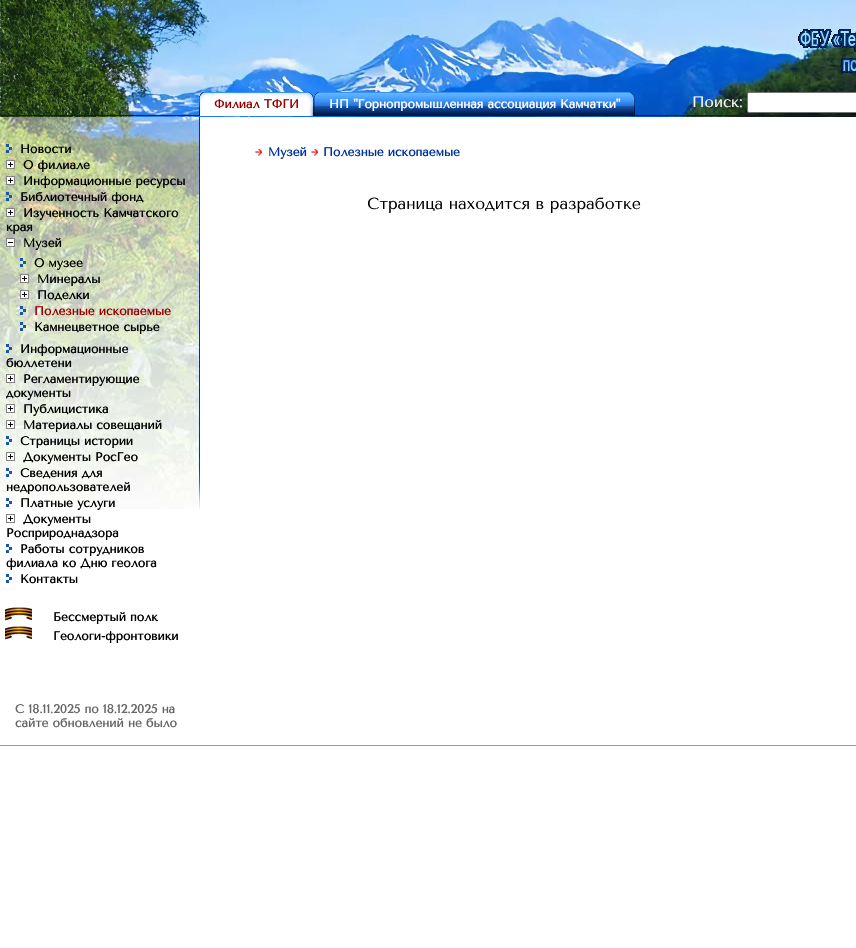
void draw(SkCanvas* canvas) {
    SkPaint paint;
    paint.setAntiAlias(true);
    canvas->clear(0xFFFFFFFF);
    canvas->drawImageRect(SkImages::DeferredFromEncodedData(SkData::MakeFromFileName("img1.png")), SkRect::MakeXYWH(0, 0, 856, 117), SkSamplingOptions());
    canvas->drawImageRect(SkImages::DeferredFromEncodedData(SkData::MakeFromFileName("img2.png")), SkRect::MakeXYWH(798, 29, 58, 44), SkSamplingOptions());
    paint.setColor(0xFF061E4E);
    canvas->drawRect(SkRect::MakeXYWH(0, 115, 856, 1), paint);
    canvas->drawImageRect(SkImages::DeferredFromEncodedData(SkData::MakeFromFileName("img3.png")), SkRect::MakeXYWH(199, 92, 15, 24), SkSamplingOptions());
    canvas->drawImageRect(SkImages::DeferredFromEncodedData(SkData::MakeFromFileName("img4.png")), SkRect::MakeXYWH(214, 92, 100, 24), SkSamplingOptions());
    SkFont font1(fontMgr->matchFamilyStyle("Tenor Sans", SkFontStyle::Bold()), 12);
    font1.setSubpixel(true);
    paint.setColor(0xFF990000);
    canvas->drawString("Филиал ТФГИ", 214, 108, font1, paint);
    canvas->drawImageRect(SkImages::DeferredFromEncodedData(SkData::MakeFromFileName("img5.png")), SkRect::MakeXYWH(314, 92, 15, 24), SkSamplingOptions());
    canvas->drawImageRect(SkImages::DeferredFromEncodedData(SkData::MakeFromFileName("img6.png")), SkRect::MakeXYWH(329, 92, 306, 24), SkSamplingOptions());
    paint.setColor(0xFFFFFFFF);
    canvas->drawString("НП \"Горнопромышленная ассоциация Камчатки\"", 329, 108, font1, paint);
    SkFont font2(fontMgr->matchFamilyStyle("Tenor Sans", SkFontStyle::Normal()), 15);
    font2.setSubpixel(true);
    canvas->drawString("Поиск:", 692, 107, font2, paint);
    canvas->drawRoundRect(SkRect::MakeXYWH(747.5f, 92.5f, 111, 20), 1.5f, 1.5f, paint);
    paint.setStyle(SkPaint::kStroke_Style);
    paint.setStrokeWidth(1);
    paint.setColor(0xFF767676);
    canvas->drawRoundRect(SkRect::MakeXYWH(747.5f, 92.5f, 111, 20), 1.5f, 1.5f, paint);
    canvas->drawImageRect(SkImages::DeferredFromEncodedData(SkData::MakeFromFileName("img7.png")), SkRect::MakeXYWH(0, 117, 200, 392), SkSamplingOptions());
    canvas->drawImageRect(SkImages::DeferredFromEncodedData(SkData::MakeFromFileName("img8.png")), SkRect::MakeXYWH(6, 144, 6, 9), SkSamplingOptions());
    paint.setStyle(SkPaint::kFill_Style);
    paint.setColor(0xFF000000);
    canvas->drawString("Новости", 20, 153, font1, paint);
    canvas->drawImageRect(SkImages::DeferredFromEncodedData(SkData::MakeFromFileName("img9.png")), SkRect::MakeXYWH(6, 160, 9, 9), SkSamplingOptions());
    canvas->drawString("О филиале", 23, 169, font1, paint);
    canvas->drawImageRect(SkImages::DeferredFromEncodedData(SkData::MakeFromFileName("img9.png")), SkRect::MakeXYWH(6, 176, 9, 9), SkSamplingOptions());
    canvas->drawString("Информационные ресурсы", 23, 185, font1, paint);
    canvas->drawImageRect(SkImages::DeferredFromEncodedData(SkData::MakeFromFileName("img10.png")), SkRect::MakeXYWH(6, 192, 6, 9), SkSamplingOptions());
    canvas->drawString("Библиотечный фонд", 20, 201, font1, paint);
    canvas->drawImageRect(SkImages::DeferredFromEncodedData(SkData::MakeFromFileName("img9.png")), SkRect::MakeXYWH(6, 208, 9, 9), SkSamplingOptions());
    canvas->drawString("Изученность Камчатского", 23, 217, font1, paint);
    canvas->drawString("края", 6, 231, font1, paint);
    canvas->drawImageRect(SkImages::DeferredFromEncodedData(SkData::MakeFromFileName("img11.png")), SkRect::MakeXYWH(6, 238, 9, 9), SkSamplingOptions());
    canvas->drawString("Музей", 23, 247, font1, paint);
    canvas->drawImageRect(SkImages::DeferredFromEncodedData(SkData::MakeFromFileName("img12.png")), SkRect::MakeXYWH(20, 258, 6, 9), SkSamplingOptions());
    canvas->drawString("О музее", 34, 267, font1, paint);
    canvas->drawImageRect(SkImages::DeferredFromEncodedData(SkData::MakeFromFileName("img9.png")), SkRect::MakeXYWH(20, 274, 9, 9), SkSamplingOptions());
    canvas->drawString("Минералы", 37, 283, font1, paint);
    canvas->drawImageRect(SkImages::DeferredFromEncodedData(SkData::MakeFromFileName("img9.png")), SkRect::MakeXYWH(20, 290, 9, 9), SkSamplingOptions());
    canvas->drawString("Поделки", 37, 299, font1, paint);
    canvas->drawImageRect(SkImages::DeferredFromEncodedData(SkData::MakeFromFileName("img13.png")), SkRect::MakeXYWH(20, 306, 6, 9), SkSamplingOptions());
    paint.setColor(0xFF990000);
    canvas->drawString("Полезные ископаемые", 34, 315, font1, paint);
    canvas->drawImageRect(SkImages::DeferredFromEncodedData(SkData::MakeFromFileName("img14.png")), SkRect::MakeXYWH(20, 322, 6, 9), SkSamplingOptions());
    paint.setColor(0xFF000000);
    canvas->drawString("Камнецветное сырье", 34, 331, font1, paint);
    canvas->drawImageRect(SkImages::DeferredFromEncodedData(SkData::MakeFromFileName("img15.png")), SkRect::MakeXYWH(6, 344, 6, 9), SkSamplingOptions());
    canvas->drawString("Информационные", 20, 353, font1, paint);
    canvas->drawString("бюллетени", 6, 367, font1, paint);
    canvas->drawImageRect(SkImages::DeferredFromEncodedData(SkData::MakeFromFileName("img9.png")), SkRect::MakeXYWH(6, 374, 9, 9), SkSamplingOptions());
    canvas->drawString("Регламентирующие", 23, 383, font1, paint);
    canvas->drawString("документы", 6, 397, font1, paint);
    canvas->drawImageRect(SkImages::DeferredFromEncodedData(SkData::MakeFromFileName("img9.png")), SkRect::MakeXYWH(6, 404, 9, 9), SkSamplingOptions());
    canvas->drawString("Публицистика", 23, 413, font1, paint);
    canvas->drawImageRect(SkImages::DeferredFromEncodedData(SkData::MakeFromFileName("img9.png")), SkRect::MakeXYWH(6, 420, 9, 9), SkSamplingOptions());
    canvas->drawString("Материалы совещаний", 23, 429, font1, paint);
    canvas->drawImageRect(SkImages::DeferredFromEncodedData(SkData::MakeFromFileName("img16.png")), SkRect::MakeXYWH(6, 436, 6, 9), SkSamplingOptions());
    canvas->drawString("Страницы истории", 20, 445, font1, paint);
    canvas->drawImageRect(SkImages::DeferredFromEncodedData(SkData::MakeFromFileName("img9.png")), SkRect::MakeXYWH(6, 452, 9, 9), SkSamplingOptions());
    canvas->drawString("Документы РосГео", 23, 461, font1, paint);
    canvas->drawImageRect(SkImages::DeferredFromEncodedData(SkData::MakeFromFileName("img17.png")), SkRect::MakeXYWH(6, 468, 6, 9), SkSamplingOptions());
    canvas->drawString("Сведения для", 20, 477, font1, paint);
    canvas->drawString("недропользователей", 6, 491, font1, paint);
    canvas->drawImageRect(SkImages::DeferredFromEncodedData(SkData::MakeFromFileName("img18.png")), SkRect::MakeXYWH(6, 498, 6, 9), SkSamplingOptions());
    canvas->drawString("Платные услуги", 20, 507, font1, paint);
    canvas->drawImageRect(SkImages::DeferredFromEncodedData(SkData::MakeFromFileName("img9.png")), SkRect::MakeXYWH(6, 514, 9, 9), SkSamplingOptions());
    canvas->drawString("Документы", 23, 523, font1, paint);
    canvas->drawString("Росприроднадзора", 6, 537, font1, paint);
    canvas->drawImageRect(SkImages::DeferredFromEncodedData(SkData::MakeFromFileName("img19.png")), SkRect::MakeXYWH(6, 544, 6, 9), SkSamplingOptions());
    canvas->drawString("Работы сотрудников", 20, 553, font1, paint);
    canvas->drawString("филиала ко Дню геолога", 6, 567, font1, paint);
    canvas->drawImageRect(SkImages::DeferredFromEncodedData(SkData::MakeFromFileName("img19.png")), SkRect::MakeXYWH(6, 574, 6, 9), SkSamplingOptions());
    canvas->drawString("Контакты", 20, 583, font1, paint);
    canvas->drawImageRect(SkImages::DeferredFromEncodedData(SkData::MakeFromFileName("img20.png")), SkRect::MakeXYWH(5, 607, 27, 14), SkSamplingOptions());
    canvas->drawString("Бессмертый полк", 53, 621, font1, paint);
    canvas->drawImageRect(SkImages::DeferredFromEncodedData(SkData::MakeFromFileName("img20.png")), SkRect::MakeXYWH(5, 626, 27, 14), SkSamplingOptions());
    canvas->drawString("Геологи-фронтовики", 53, 640, font1, paint);
    paint.setColor(0xFF666666);
    canvas->drawString("C 18.11.2025 по 18.12.2025 на", 15, 713, font1, paint);
    canvas->drawString("сайте обновлений не было", 15, 727, font1, paint);
    canvas->drawImageRect(SkImages::DeferredFromEncodedData(SkData::MakeFromFileName("img21.png")), SkRect::MakeXYWH(255, 149, 7, 7), SkSamplingOptions());
    paint.setColor(0xFF003399);
    canvas->drawString("Музей", 268, 156, font1, paint);
    canvas->drawImageRect(SkImages::DeferredFromEncodedData(SkData::MakeFromFileName("img21.png")), SkRect::MakeXYWH(311, 149, 7, 7), SkSamplingOptions());
    canvas->drawString("Полезные ископаемые", 323, 156, font1, paint);
    SkFont font3(fontMgr->matchFamilyStyle("Tenor Sans", SkFontStyle::Normal()), 16);
    font3.setSubpixel(true);
    paint.setColor(0xFF000000);
    canvas->drawString("Страница находится в разработке", 367, 209, font3, paint);
    paint.setColor(0xFF999999);
    canvas->drawRect(SkRect::MakeXYWH(0, 745, 856, 1), paint);
}
